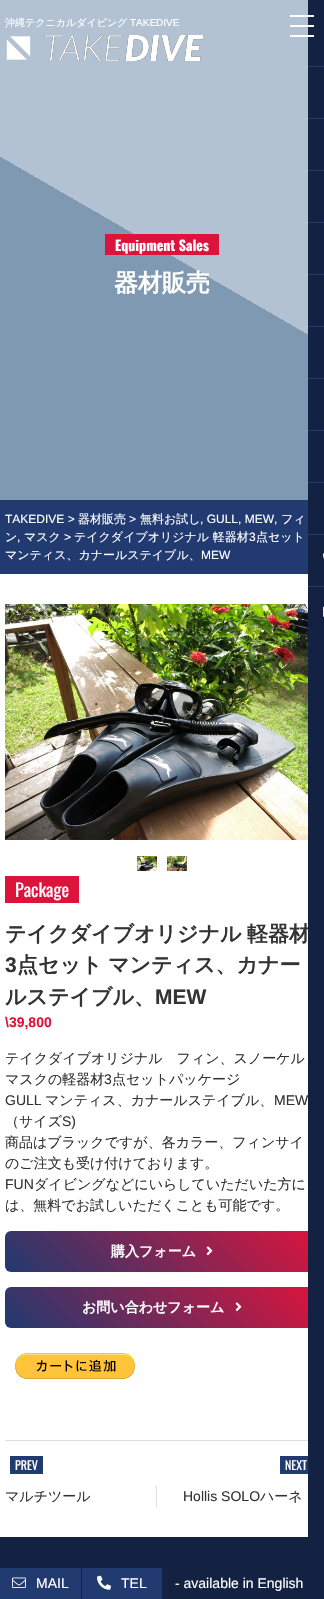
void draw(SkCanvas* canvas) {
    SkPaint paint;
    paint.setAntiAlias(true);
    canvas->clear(0xFFFFFFFF);
    {
        const SkColor colors[] = {0xFF8099B3, 0xFFB3C2D2};
        const float stops[] = {0.5f, 0.5f};
        const SkPoint ends[] = {{13, 508}, {311, -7.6f}};
        paint.setShader(SkGradientShader::MakeLinear(ends, colors, stops, 2, SkTileMode::kClamp));
        paint.setAlpha(255);
    }
    canvas->drawRect(SkRect::MakeXYWH(0, 0, 308, 500), paint);
    SkFont font1(fontMgr->matchFamilyStyle("WenQuanYi Zen Hei", SkFontStyle(500, SkFontStyle::kNormal_Width, SkFontStyle::kUpright_Slant)), 10);
    font1.setSubpixel(true);
    paint.setShader(nullptr);
    paint.setColor(0xFFFFFFFF);
    canvas->drawString("沖縄テクニカルダイビング", 5, 26, font1, paint);
    SkFont font2(fontMgr->matchFamilyStyle("Liberation Sans", SkFontStyle::Normal()), 10);
    font2.setSubpixel(true);
    canvas->drawString("TAKEDIVE", 130, 26, font2, paint);
    canvas->drawImageRect(SkImages::DeferredFromEncodedData(SkData::MakeFromFileName("img1.png")), SkRect::MakeXYWH(6, 35, 198, 26), SkSamplingOptions());
    SkFont font3(fontMgr->matchFamilyStyle("WenQuanYi Zen Hei", SkFontStyle::Bold()), 21);
    font3.setSubpixel(true);
    paint.setColor(0xFF333333);
    canvas->drawString("軽器材", 247, 941, font3, paint);
    {
        const SkColor colors[] = {0xFF213A70, 0xFFDC143C};
        const float stops[] = {0, 1};
        const SkPoint ends[] = {{73, 1340}, {251, 1163}};
        paint.setShader(SkGradientShader::MakeLinear(ends, colors, stops, 2, SkTileMode::kClamp));
        paint.setAlpha(255);
    }
    canvas->drawRoundRect(SkRect::MakeXYWH(5, 1231, 314, 41), 6, 6, paint);
    {
        const SkColor colors[] = {0xFF213A70, 0xFFDC143C};
        const float stops[] = {0, 1};
        const SkPoint ends[] = {{73, 1396}, {251, 1219}};
        paint.setShader(SkGradientShader::MakeLinear(ends, colors, stops, 2, SkTileMode::kClamp));
        paint.setAlpha(255);
    }
    canvas->drawRoundRect(SkRect::MakeXYWH(5, 1287, 314, 41), 6, 6, paint);
    paint.setShader(nullptr);
    paint.setColor(0xFF132242);
    canvas->drawRect(SkRect::MakeXYWH(308, 0, 16, 1599), paint);
    paint.setColor(0xFFFFFFFF);
    canvas->drawRect(SkRect::MakeXYWH(290, 15, 24, 2), paint);
    canvas->drawRect(SkRect::MakeXYWH(290, 25, 24, 2), paint);
    canvas->drawRect(SkRect::MakeXYWH(290, 35, 24, 2), paint);
    paint.setColor(0xFF213A70);
    canvas->drawRect(SkRect::MakeXYWH(308, 66, 16, 1), paint);
    canvas->drawRect(SkRect::MakeXYWH(308, 118, 16, 1), paint);
    canvas->drawRect(SkRect::MakeXYWH(308, 170, 16, 1), paint);
    canvas->drawRect(SkRect::MakeXYWH(308, 222, 16, 1), paint);
    canvas->drawRect(SkRect::MakeXYWH(308, 274, 16, 1), paint);
    canvas->drawRect(SkRect::MakeXYWH(308, 326, 16, 1), paint);
    canvas->drawRect(SkRect::MakeXYWH(308, 378, 16, 1), paint);
    canvas->drawRect(SkRect::MakeXYWH(308, 430, 16, 1), paint);
    canvas->drawRect(SkRect::MakeXYWH(308, 482, 16, 1), paint);
    canvas->drawRect(SkRect::MakeXYWH(308, 534, 16, 1), paint);
    canvas->drawImageRect(SkImages::DeferredFromEncodedData(SkData::MakeFromFileName("img2.png")), SkRect::MakeXYWH(323, 553, 1, 6), SkSamplingOptions());
    canvas->drawRect(SkRect::MakeXYWH(308, 586, 16, 1), paint);
    canvas->drawImageRect(SkImages::DeferredFromEncodedData(SkData::MakeFromFileName("img3.png")), SkRect::MakeXYWH(323, 606, 1, 11), SkSamplingOptions());
    paint.setColor(0xFFDC143C);
    canvas->drawRect(SkRect::MakeXYWH(105, 234, 114, 21), paint);
    SkFont font4(fontMgr->matchFamilyStyle("Oswald", SkFontStyle::Bold()), 14);
    font4.setSubpixel(true);
    paint.setColor(0xFFFFFFFF);
    canvas->drawString("Equipment Sales", 115, 251, font4, paint);
    SkFont font5(fontMgr->matchFamilyStyle("WenQuanYi Zen Hei", SkFontStyle::Bold()), 24);
    font5.setSubpixel(true);
    canvas->drawString("器材販売", 114, 291, font5, paint);
    paint.setColor(0xFF213A70);
    canvas->drawRect(SkRect::MakeXYWH(0, 500, 308, 74), paint);
    SkFont font6(fontMgr->matchFamilyStyle("Liberation Sans", SkFontStyle::Normal()), 12);
    font6.setSubpixel(true);
    paint.setColor(0xFFFFFFFF);
    canvas->drawString("TAKEDIVE >", 5, 523, font6, paint);
    SkFont font7(fontMgr->matchFamilyStyle("WenQuanYi Zen Hei", SkFontStyle(500, SkFontStyle::kNormal_Width, SkFontStyle::kUpright_Slant)), 12);
    font7.setSubpixel(true);
    canvas->drawString("器材販売", 78, 523, font7, paint);
    canvas->drawString(">", 129, 523, font6, paint);
    canvas->drawString("無料お試し", 140, 523, font7, paint);
    canvas->drawString(", GULL, MEW,", 200, 523, font6, paint);
    canvas->drawString("フィ", 281, 523, font7, paint);
    canvas->drawString("ン", 5, 541, font7, paint);
    canvas->drawString(",", 17, 541, font6, paint);
    canvas->drawString("マスク", 24, 541, font7, paint);
    canvas->drawString(">", 64, 541, font6, paint);
    canvas->drawString("テイクダイブオリジナル 軽器材", 74, 541, font7, paint);
    canvas->drawString("3", 249, 541, font6, paint);
    canvas->drawString("点セット", 256, 541, font7, paint);
    canvas->drawString("マンティス、カナールステイブル、", 5, 559, font7, paint);
    canvas->drawString("MEW", 201, 559, font6, paint);
    canvas->drawImageRect(SkImages::DeferredFromEncodedData(SkData::MakeFromFileName("img4.png")), SkRect::MakeXYWH(5, 604, 303, 236), SkSamplingOptions());
    canvas->drawImageRect(SkImages::DeferredFromEncodedData(SkData::MakeFromFileName("img5.png")), SkRect::MakeXYWH(137, 856, 20, 15), SkSamplingOptions());
    canvas->drawImageRect(SkImages::DeferredFromEncodedData(SkData::MakeFromFileName("img6.png")), SkRect::MakeXYWH(167, 856, 20, 15), SkSamplingOptions());
    paint.setColor(0xFFDC143C);
    canvas->drawRect(SkRect::MakeXYWH(5, 876, 74, 27), paint);
    SkFont font8(fontMgr->matchFamilyStyle("Oswald", SkFontStyle::Normal()), 18);
    font8.setSubpixel(true);
    paint.setColor(0xFFFFFFFF);
    canvas->drawString("Package", 15, 897, font8, paint);
    paint.setColor(0xFF333333);
    canvas->drawString("テイクダイブオリジナル", 5, 941, font3, paint);
    SkFont font9(fontMgr->matchFamilyStyle("Liberation Sans", SkFontStyle::Bold()), 21);
    font9.setSubpixel(true);
    canvas->drawString("3", 5, 972, font9, paint);
    canvas->drawString("点セット", 17, 972, font3, paint);
    canvas->drawString("マンティス、カナー", 108, 972, font3, paint);
    canvas->drawString("ルステイブル、", 5, 1004, font3, paint);
    canvas->drawString("MEW", 155, 1004, font9, paint);
    SkFont font10(fontMgr->matchFamilyStyle("Liberation Sans", SkFontStyle::Bold()), 14);
    font10.setSubpixel(true);
    paint.setColor(0xFFDC143C);
    canvas->drawString("\\39,800", 5, 1027, font10, paint);
    SkFont font11(fontMgr->matchFamilyStyle("WenQuanYi Zen Hei", SkFontStyle(500, SkFontStyle::kNormal_Width, SkFontStyle::kUpright_Slant)), 14);
    font11.setSubpixel(true);
    paint.setColor(0xFF333333);
    canvas->drawString("テイクダイブオリジナル　フィン、スノーケル", 5, 1063, font11, paint);
    canvas->drawString("マスクの軽器材", 5, 1084, font11, paint);
    SkFont font12(fontMgr->matchFamilyStyle("Liberation Sans", SkFontStyle::Normal()), 14);
    font12.setSubpixel(true);
    canvas->drawString("3", 104, 1084, font12, paint);
    canvas->drawString("点セットパッケージ", 112, 1084, font11, paint);
    canvas->drawString("GULL", 5, 1105, font12, paint);
    canvas->drawString("マンティス、カナールステイブル、", 45, 1105, font11, paint);
    canvas->drawString("MEW", 274, 1105, font12, paint);
    canvas->drawString("（サイズ", 5, 1126, font11, paint);
    canvas->drawString("S)", 62, 1126, font12, paint);
    canvas->drawString("商品はブラックですが、各カラー、フィンサイ", 5, 1147, font11, paint);
    canvas->drawString("のご注文も受け付けております。", 5, 1168, font11, paint);
    canvas->drawString("FUN", 5, 1189, font12, paint);
    canvas->drawString("ダイビングなどにいらしていただいた方に", 34, 1189, font11, paint);
    canvas->drawString("は、無料でお試しいただくことも可能です。", 5, 1210, font11, paint);
    SkFont font13(fontMgr->matchFamilyStyle("WenQuanYi Zen Hei", SkFontStyle::Bold()), 14);
    font13.setSubpixel(true);
    paint.setColor(0xFFFFFFFF);
    canvas->drawString("購入フォーム", 111, 1256, font13, paint);
    canvas->drawImageRect(SkImages::DeferredFromEncodedData(SkData::MakeFromFileName("img7.png")), SkRect::MakeXYWH(206, 1246, 7, 10), SkSamplingOptions());
    canvas->drawString("お問い合わせフォーム", 82, 1312, font13, paint);
    canvas->drawImageRect(SkImages::DeferredFromEncodedData(SkData::MakeFromFileName("img8.png")), SkRect::MakeXYWH(235, 1302, 7, 10), SkSamplingOptions());
    canvas->drawImageRect(SkImages::DeferredFromEncodedData(SkData::MakeFromFileName("img9.png")), SkRect::MakeXYWH(15, 1353, 120, 26), SkSamplingOptions());
    paint.setColor(0xFFDDDDDD);
    canvas->drawRect(SkRect::MakeXYWH(5, 1440, 303, 1), paint);
    canvas->drawRect(SkRect::MakeXYWH(156, 1486, 1, 21), paint);
    paint.setColor(0xFF213A70);
    canvas->drawRect(SkRect::MakeXYWH(10, 1456, 33, 18), paint);
    SkFont font14(fontMgr->matchFamilyStyle("Oswald", SkFontStyle::Normal()), 12);
    font14.setSubpixel(true);
    paint.setColor(0xFFFFFFFF);
    canvas->drawString("PREV", 15, 1470, font14, paint);
    paint.setColor(0xFF333333);
    canvas->drawString("マルチツール", 5, 1501, font11, paint);
    paint.setColor(0xFF213A70);
    canvas->drawRect(SkRect::MakeXYWH(280, 1456, 28, 18), paint);
    paint.setColor(0xFFFFFFFF);
    canvas->drawString("NEXT", 285, 1470, font14, paint);
    paint.setColor(0xFF333333);
    canvas->drawString("Hollis SOLO", 183, 1501, font12, paint);
    canvas->drawString("ハーネ", 260, 1501, font11, paint);
    paint.setColor(0xFF132242);
    canvas->drawRect(SkRect::MakeXYWH(0, 1537, 308, 31), paint);
    paint.setColor(0xFF213A70);
    canvas->drawRect(SkRect::MakeXYWH(0, 1568, 81, 31), paint);
    canvas->drawImageRect(SkImages::DeferredFromEncodedData(SkData::MakeFromFileName("img10.png")), SkRect::MakeXYWH(12, 1577, 14, 11), SkSamplingOptions());
    paint.setColor(0xFFFFFFFF);
    canvas->drawString("MAIL", 36, 1588, font12, paint);
    paint.setColor(0xFF213A70);
    canvas->drawRect(SkRect::MakeXYWH(82, 1568, 80, 31), paint);
    paint.setColor(0xFF132242);
    canvas->drawRect(SkRect::MakeXYWH(81, 1568, 1, 31), paint);
    canvas->drawImageRect(SkImages::DeferredFromEncodedData(SkData::MakeFromFileName("img11.png")), SkRect::MakeXYWH(97, 1575, 14, 15), SkSamplingOptions());
    paint.setColor(0xFFFFFFFF);
    canvas->drawString("TEL", 121, 1588, font12, paint);
    paint.setColor(0xFF132242);
    canvas->drawRect(SkRect::MakeXYWH(162, 1568, 146, 31), paint);
    paint.setColor(0xFFFFFFFF);
    canvas->drawString("- available in English", 175, 1588, font12, paint);
}
